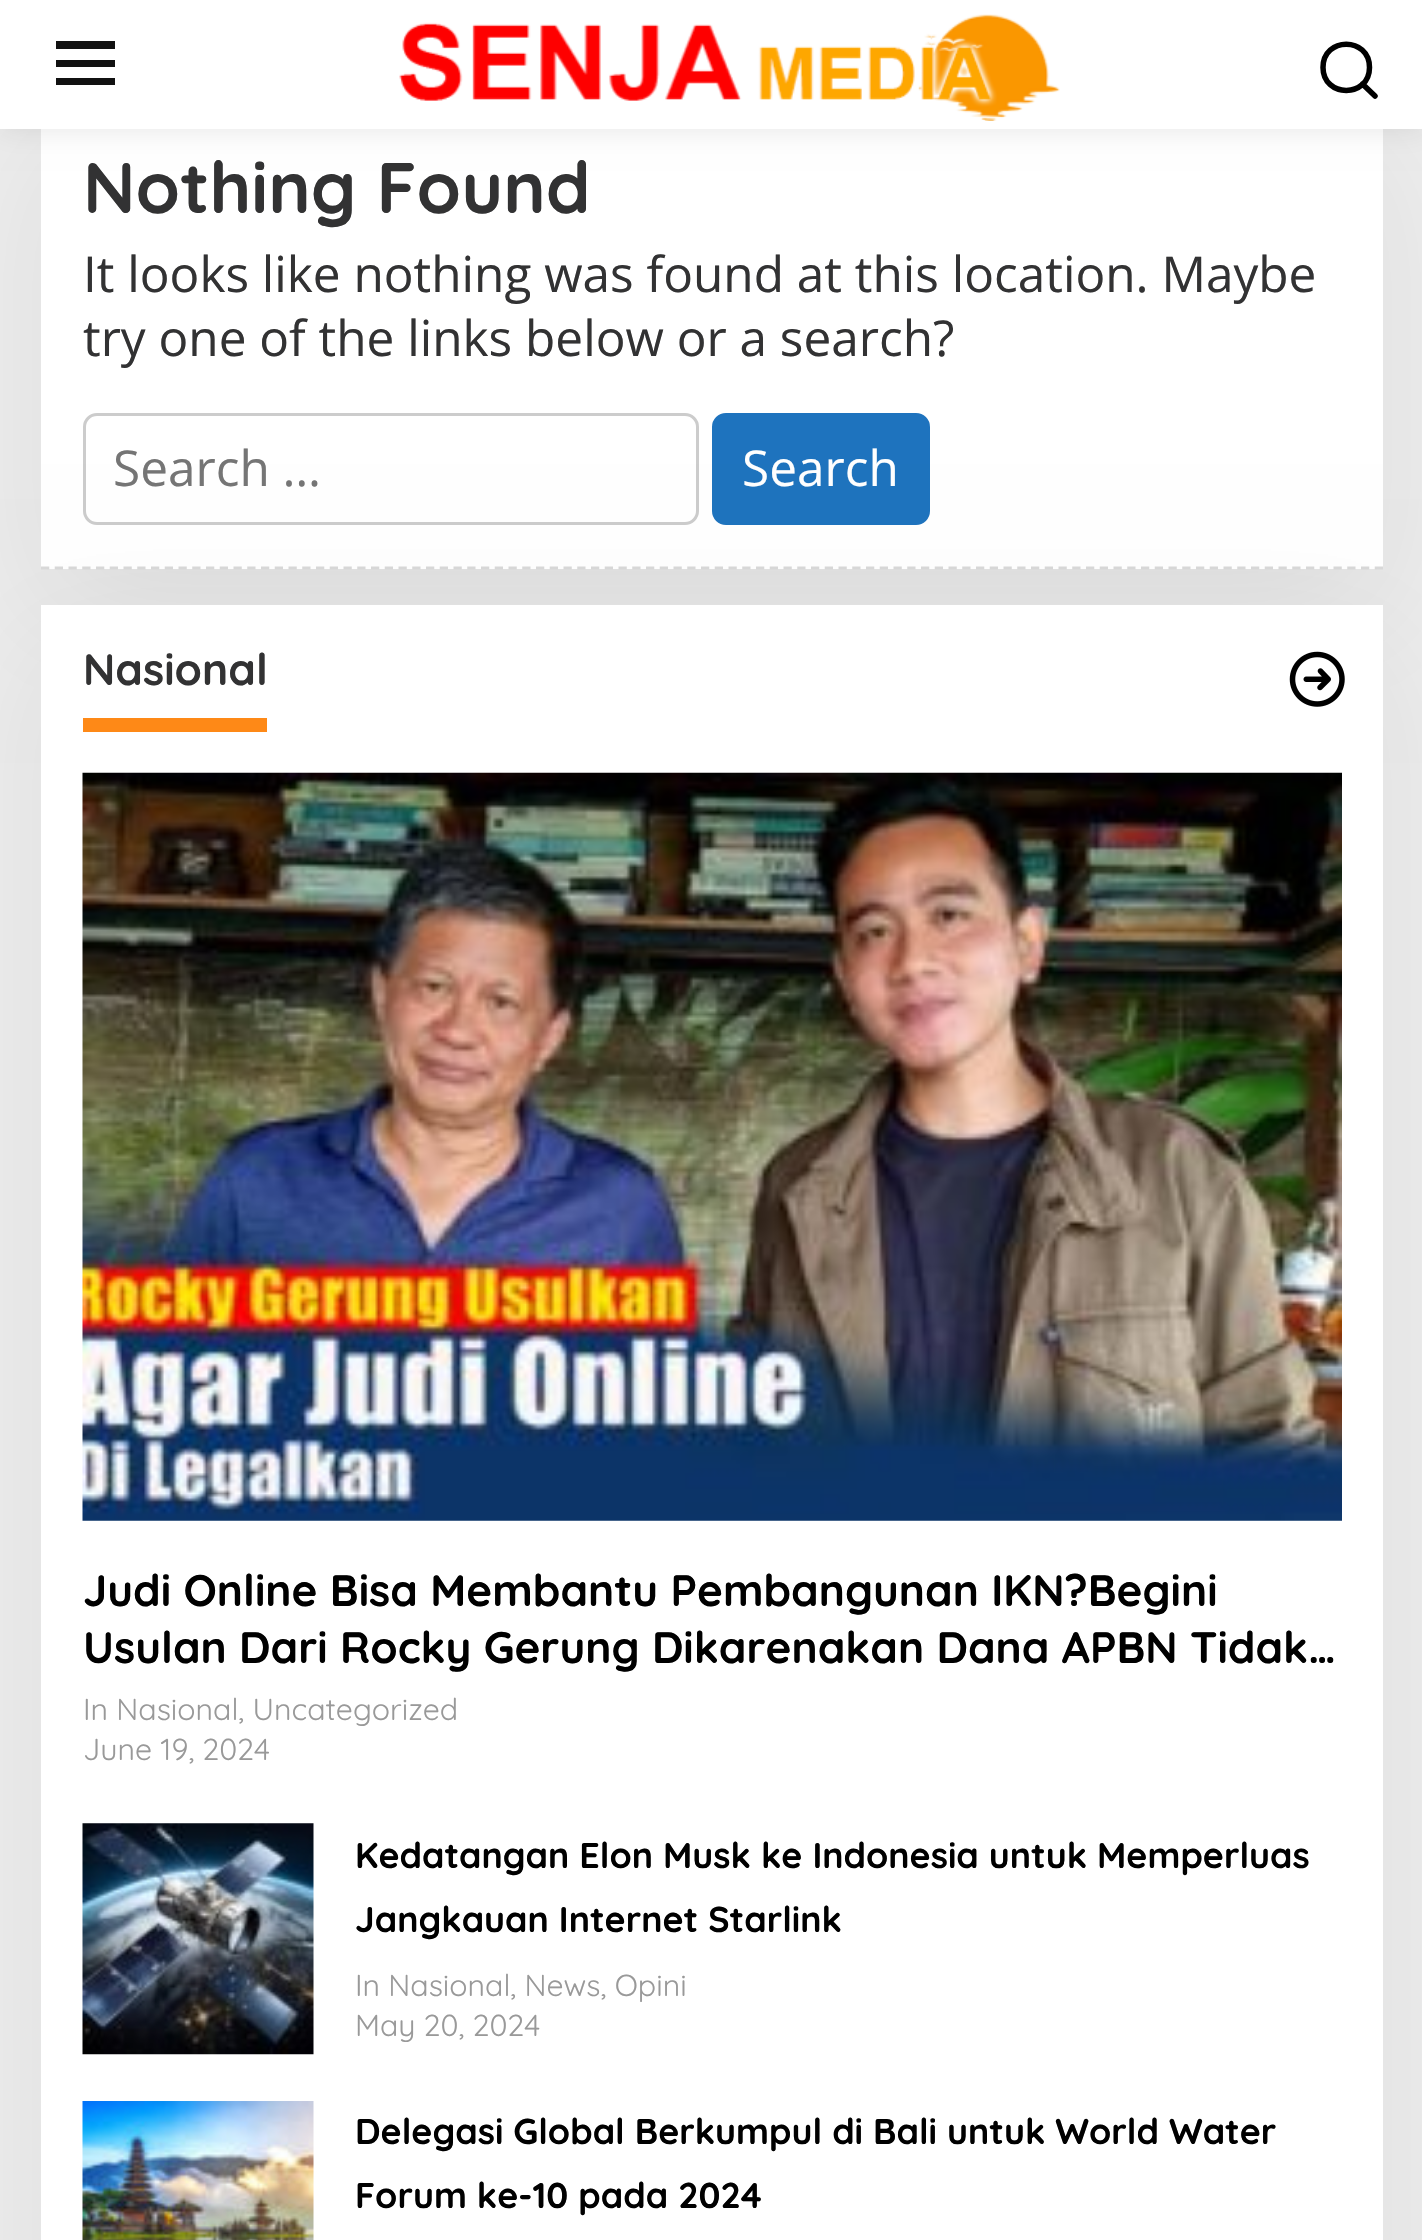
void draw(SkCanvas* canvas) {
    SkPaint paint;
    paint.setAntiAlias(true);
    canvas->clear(0xFFEEEEEE);
    paint.setColor(0x12000000);
    paint.setMaskFilter(SkMaskFilter::MakeBlur(kNormal_SkBlurStyle, 62));
    canvas->drawRect(SkRect::MakeXYWH(41, 151, 1342, 462), paint);
    paint.setMaskFilter(nullptr);
    paint.setColor(0xFFFFFFFF);
    canvas->drawRect(SkRect::MakeXYWH(41, 129, 1342, 440), paint);
    paint.setColor(0x1A000000);
    paint.setMaskFilter(SkMaskFilter::MakeBlur(kNormal_SkBlurStyle, 14));
    canvas->drawRect(SkRect::MakeXYWH(0, 0, 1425, 129), paint);
    paint.setMaskFilter(nullptr);
    paint.setColor(0xFFFFFFFF);
    canvas->drawRect(SkRect::MakeXYWH(0, 0, 1422, 129), paint);
    paint.setColor(0xFF111111);
    canvas->drawPath(SkPathBuilder().moveTo(56, 41).lineTo(115, 41).lineTo(115, 49).lineTo(56, 49).close().moveTo(56, 60).lineTo(115, 60).lineTo(115, 67).lineTo(56, 67).close().moveTo(56, 78).lineTo(115, 78).lineTo(115, 85).lineTo(56, 85).close().detach(), paint);
    canvas->drawImageRect(SkImages::DeferredFromEncodedData(SkData::MakeFromFileName("img1.png")), SkRect::MakeXYWH(399, 14, 661, 107), SkSamplingOptions());
    paint.setStyle(SkPaint::kStroke_Style);
    paint.setStrokeWidth(5.5f);
    paint.setStrokeCap(SkPaint::kRound_Cap);
    paint.setColor(0xFF000000);
    canvas->drawPath(SkPathBuilder().moveTo(1375, 96).lineTo(1362.5f, 84).moveTo(1369.5f, 67.5f).cubicTo(1369.5f, 98, 1323, 98, 1323, 67.5f).cubicTo(1323, 36.5f, 1369.5f, 36.5f, 1369.5f, 67.5f).close().detach(), paint);
    paint.setStrokeWidth(2.8f);
    paint.setStrokeCap(SkPaint::kButt_Cap);
    paint.setColor(0xFFD9D9D9);
    paint.setPathEffect(SkDashPathEffect::Make({{8.25f, 5.5f}}, 0));
    canvas->drawPath(SkPathBuilder().moveTo(41, 568).lineTo(1383, 568).detach(), paint);
    paint.setPathEffect(nullptr);
    SkFont font1(fontMgr->matchFamilyStyle("Quicksand", SkFontStyle::Bold()), 71.5f);
    font1.setSubpixel(true);
    paint.setStyle(SkPaint::kFill_Style);
    paint.setColor(0xFF323233);
    canvas->drawString("Nothing Found", 83, 213, font1, paint);
    SkFont font2(fontMgr->matchFamilyStyle("Open Sans", SkFontStyle::Normal()), 49.5f);
    font2.setSubpixel(true);
    canvas->drawString("It looks like nothing was found at this location. Maybe", 83, 292, font2, paint);
    canvas->drawString("try one of the links below or a search?", 83, 356, font2, paint);
    paint.setStyle(SkPaint::kStroke_Style);
    paint.setStrokeWidth(3);
    paint.setColor(0xFFCCCCCC);
    canvas->drawRoundRect(SkRect::MakeXYWH(84.5f, 414.5f, 613, 109), 12.5f, 12.5f, paint);
    paint.setStyle(SkPaint::kFill_Style);
    paint.setColor(0xFF757575);
    canvas->drawString("Search …", 113, 486, font2, paint);
    paint.setColor(0xFF1E73BE);
    canvas->drawRoundRect(SkRect::MakeXYWH(713.5f, 414.5f, 215, 109), 12.5f, 12.5f, paint);
    paint.setStyle(SkPaint::kStroke_Style);
    canvas->drawRoundRect(SkRect::MakeXYWH(713.5f, 414.5f, 215, 109), 12.5f, 12.5f, paint);
    paint.setStyle(SkPaint::kFill_Style);
    paint.setColor(0xFFFFFFFF);
    canvas->drawString("Search", 742, 486, font2, paint);
    paint.setColor(0x12000000);
    paint.setMaskFilter(SkMaskFilter::MakeBlur(kNormal_SkBlurStyle, 62));
    canvas->drawRect(SkRect::MakeXYWH(41, 649, 1342, 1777), paint);
    paint.setMaskFilter(nullptr);
    paint.setColor(0xFFFFFFFF);
    canvas->drawRect(SkRect::MakeXYWH(41, 605, 1342, 1635), paint);
    paint.setColor(0xFFFE8917);
    canvas->drawRect(SkRect::MakeXYWH(83, 718, 184, 14), paint);
    SkFont font3(fontMgr->matchFamilyStyle("Quicksand", SkFontStyle::Bold()), 44);
    font3.setSubpixel(true);
    paint.setColor(0xFF323233);
    canvas->drawString("Nasional", 83, 685, font3, paint);
    canvas->drawImageRect(SkImages::DeferredFromEncodedData(SkData::MakeFromFileName("img2.png")), SkRect::MakeXYWH(1289, 651, 56, 56), SkSamplingOptions());
    canvas->drawImageRect(SkImages::DeferredFromEncodedData(SkData::MakeFromFileName("img3.png")), SkRect::MakeXYWH(82, 772, 1260, 749), SkSamplingOptions());
    paint.setColor(0xFF000000);
    canvas->drawString("Judi Online Bisa Membantu Pembangunan IKN?Begini", 83, 1606, font3, paint);
    canvas->drawString("Usulan Dari Rocky Gerung Dikarenakan Dana APBN Tidak…", 83, 1663, font3, paint);
    SkFont font4(fontMgr->matchFamilyStyle("Quicksand", SkFontStyle::Normal()), 30.25f);
    font4.setSubpixel(true);
    paint.setColor(0xFF999999);
    canvas->drawString("In Nasional, Uncategorized", 83, 1720, font4, paint);
    canvas->drawString("June 19, 2024", 83, 1760, font4, paint);
    canvas->drawImageRect(SkImages::DeferredFromEncodedData(SkData::MakeFromFileName("img4.png")), SkRect::MakeXYWH(82, 1823, 232, 232), SkSamplingOptions());
    SkFont font5(fontMgr->matchFamilyStyle("Quicksand", SkFontStyle::Bold()), 35.75f);
    font5.setSubpixel(true);
    paint.setColor(0xFF000000);
    canvas->drawString("Kedatangan Elon Musk ke Indonesia untuk Memperluas", 355, 1868, font5, paint);
    canvas->drawString("Jangkauan Internet Starlink", 355, 1932, font5, paint);
    paint.setColor(0xFF999999);
    canvas->drawString("In Nasional, News, Opini", 355, 1996, font4, paint);
    canvas->drawString("May 20, 2024", 355, 2036, font4, paint);
    canvas->drawImageRect(SkImages::DeferredFromEncodedData(SkData::MakeFromFileName("img5.png")), SkRect::MakeXYWH(82, 2101, 232, 139), SkSamplingOptions());
    paint.setColor(0xFF000000);
    canvas->drawString("Delegasi Global Berkumpul di Bali untuk World Water", 355, 2144, font5, paint);
    canvas->drawString("Forum ke-10 pada 2024", 355, 2208, font5, paint);
}
